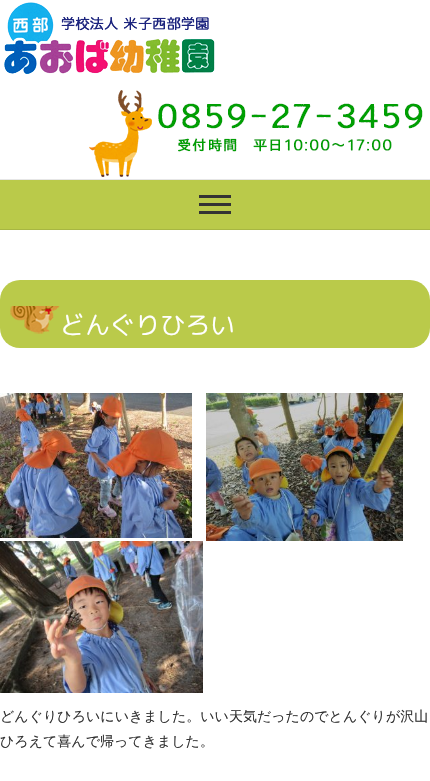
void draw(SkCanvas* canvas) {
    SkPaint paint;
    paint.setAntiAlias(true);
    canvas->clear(0xFFFFFFFF);
    paint.setColor(0xFFE6E6E6);
    canvas->drawRect(SkRect::MakeXYWH(0, 179, 430, 1), paint);
    canvas->drawImageRect(SkImages::DeferredFromEncodedData(SkData::MakeFromFileName("img1.png")), SkRect::MakeXYWH(4, 2, 211, 72), SkSamplingOptions());
    canvas->drawImageRect(SkImages::DeferredFromEncodedData(SkData::MakeFromFileName("img2.png")), SkRect::MakeXYWH(89, 90, 334, 87), SkSamplingOptions());
    paint.setColor(0xFFBACA4A);
    canvas->drawRect(SkRect::MakeXYWH(0, 180, 430, 49), paint);
    paint.setColor(0xFFA7B643);
    canvas->drawRect(SkRect::MakeXYWH(0, 229, 430, 1), paint);
    paint.setColor(0xFF333333);
    canvas->drawRect(SkRect::MakeXYWH(199, 195, 32, 3), paint);
    canvas->drawRect(SkRect::MakeXYWH(199, 203, 32, 3), paint);
    canvas->drawRect(SkRect::MakeXYWH(199, 211, 32, 3), paint);
    paint.setColor(0xFFBACA4A);
    canvas->drawRoundRect(SkRect::MakeXYWH(0, 280, 430, 68), 20, 20, paint);
    canvas->drawImageRect(SkImages::DeferredFromEncodedData(SkData::MakeFromFileName("img3.png")), SkRect::MakeXYWH(10, 306, 50, 28), SkSamplingOptions());
    SkFont font1(fontMgr->matchFamilyStyle("Rounded Mplus 1c", SkFontStyle::Normal()), 25);
    font1.setSubpixel(true);
    paint.setColor(0xFFFFFFFF);
    canvas->drawString("どんぐりひろい", 60, 334, font1, paint);
    canvas->drawImageRect(SkImages::DeferredFromEncodedData(SkData::MakeFromFileName("img4.png")), SkRect::MakeXYWH(0, 393, 192, 145), SkSamplingOptions());
    canvas->drawImageRect(SkImages::DeferredFromEncodedData(SkData::MakeFromFileName("img5.png")), SkRect::MakeXYWH(206, 393, 197, 148), SkSamplingOptions());
    canvas->drawImageRect(SkImages::DeferredFromEncodedData(SkData::MakeFromFileName("img6.png")), SkRect::MakeXYWH(0, 541, 203, 152), SkSamplingOptions());
    SkFont font2(fontMgr->matchFamilyStyle("WenQuanYi Zen Hei", SkFontStyle(500, SkFontStyle::kNormal_Width, SkFontStyle::kUpright_Slant)), 14);
    font2.setSubpixel(true);
    paint.setColor(0xFF333333);
    canvas->drawString("どんぐりひろいにいきました。いい天気だったのでとんぐりが沢山", 0, 721, font2, paint);
    canvas->drawString("ひろえて喜んで帰ってきました。", 0, 746, font2, paint);
}
